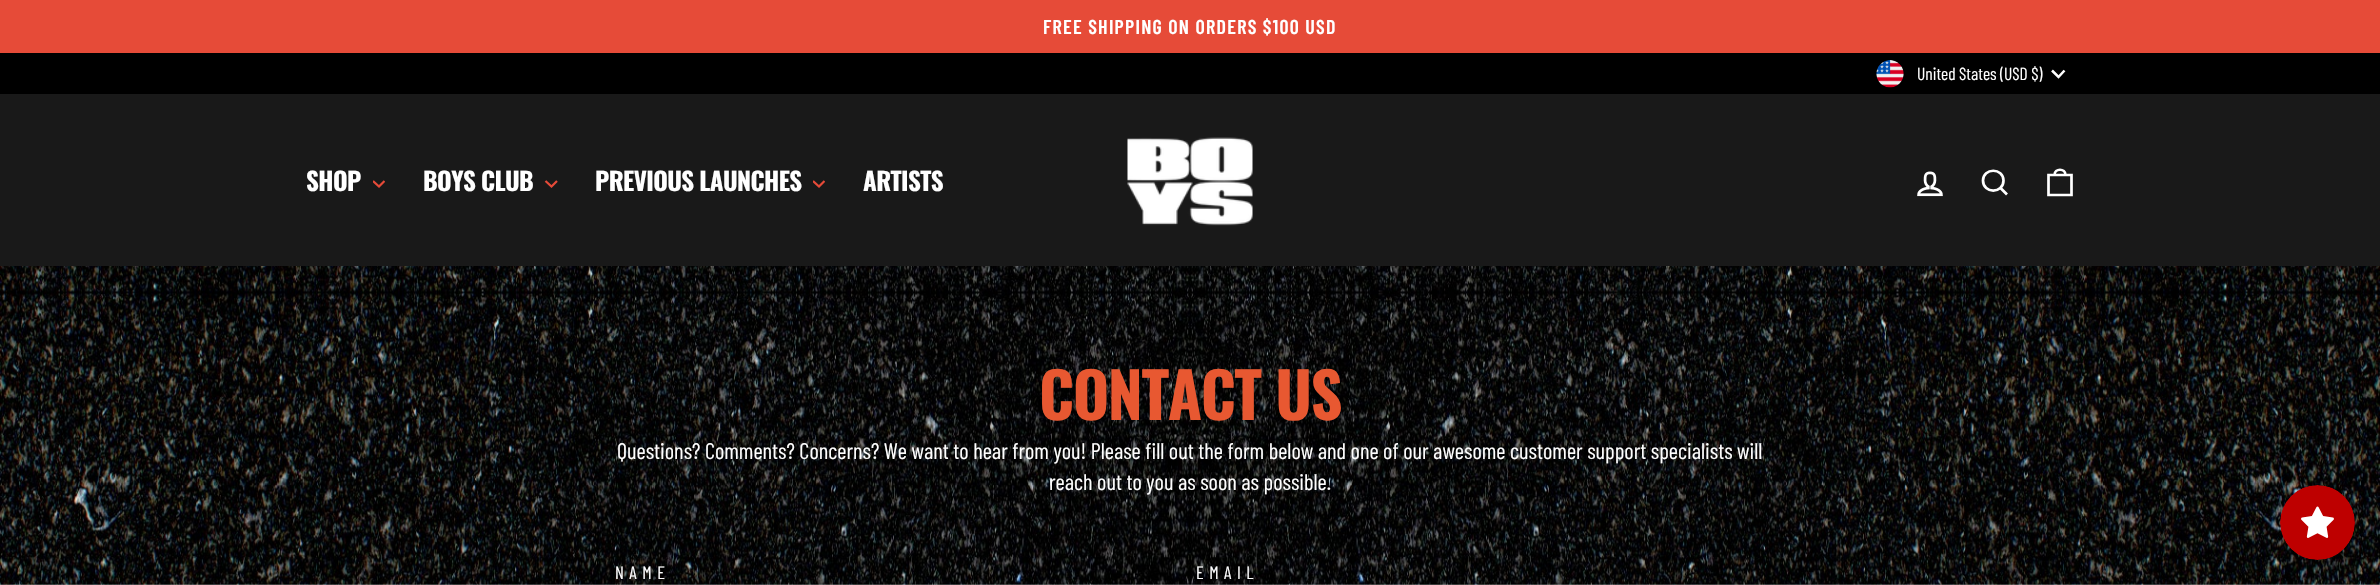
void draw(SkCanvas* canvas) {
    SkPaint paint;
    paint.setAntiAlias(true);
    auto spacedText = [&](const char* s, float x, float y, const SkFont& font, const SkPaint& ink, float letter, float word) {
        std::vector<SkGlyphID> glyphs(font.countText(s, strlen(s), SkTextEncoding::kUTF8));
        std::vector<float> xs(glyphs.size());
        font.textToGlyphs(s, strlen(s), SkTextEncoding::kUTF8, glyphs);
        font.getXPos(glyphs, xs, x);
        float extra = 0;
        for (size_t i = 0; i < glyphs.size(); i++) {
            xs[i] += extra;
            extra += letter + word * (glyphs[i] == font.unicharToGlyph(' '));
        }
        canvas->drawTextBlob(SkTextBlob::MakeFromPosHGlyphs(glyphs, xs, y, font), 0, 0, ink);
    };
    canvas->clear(0xFFFFFFFF);
    canvas->drawImageRect(SkImages::DeferredFromEncodedData(SkData::MakeFromFileName("img1.png")), SkRect::MakeXYWH(0, 266, 2380, 319), SkSamplingOptions());
    paint.setColor(0xFFE64B38);
    canvas->drawRect(SkRect::MakeXYWH(0, 0, 2380, 53), paint);
    SkFont font1(fontMgr->matchFamilyStyle("Barlow Condensed", SkFontStyle(600, SkFontStyle::kNormal_Width, SkFontStyle::kUpright_Slant)), 20);
    font1.setSubpixel(true);
    paint.setColor(0xFFFFFFFF);
    spacedText("FREE SHIPPING ON ORDERS $100 USD", 1043, 34, font1, paint, 1.25f, 0);
    paint.setColor(0xFF000000);
    canvas->drawRect(SkRect::MakeXYWH(0, 53, 2380, 41), paint);
    canvas->drawImageRect(SkImages::DeferredFromEncodedData(SkData::MakeFromFileName("img2.png")), SkRect::MakeXYWH(1876, 60, 28, 28), SkSamplingOptions());
    SkFont font2(fontMgr->matchFamilyStyle("Barlow Condensed", SkFontStyle::Normal()), 17.5f);
    font2.setSubpixel(true);
    paint.setColor(0xFFFFFFFF);
    canvas->drawString("United States (USD $)", 1917, 80, font2, paint);
    paint.setStyle(SkPaint::kStroke_Style);
    paint.setStrokeWidth(2.5f);
    canvas->drawPath(SkPathBuilder().moveTo(2052, 70.5f).lineTo(2058.5f, 77).lineTo(2064.5f, 70.5f).detach(), paint);
    paint.setStyle(SkPaint::kFill_Style);
    paint.setColor(0xFF191919);
    canvas->drawRect(SkRect::MakeXYWH(0, 94, 2380, 172), paint);
    SkFont font3(fontMgr->matchFamilyStyle("Oswald", SkFontStyle::Bold()), 25);
    font3.setSubpixel(true);
    paint.setColor(0xFFFFFFFF);
    spacedText("SHOP", 306, 191, font3, paint, -0.6f, 0);
    canvas->save();
    canvas->clipRect(SkRect::MakeXYWH(373, 178, 12, 12));
    paint.setStyle(SkPaint::kStroke_Style);
    paint.setStrokeWidth(2.2f);
    paint.setColor(0xFFE64A38);
    canvas->drawPath(SkPathBuilder().moveTo(373, 181).lineTo(379, 186.5f).lineTo(384.5f, 181).detach(), paint);
    canvas->restore();
    paint.setStyle(SkPaint::kFill_Style);
    paint.setColor(0xFFFFFFFF);
    spacedText("BOYS CLUB", 423, 191, font3, paint, -0.6f, 0);
    paint.setStyle(SkPaint::kStroke_Style);
    paint.setColor(0xFFE64A38);
    canvas->drawPath(SkPathBuilder().moveTo(545.5f, 181).lineTo(551.5f, 186.5f).lineTo(557, 181).detach(), paint);
    paint.setStyle(SkPaint::kFill_Style);
    paint.setColor(0xFFFFFFFF);
    spacedText("PREVIOUS LAUNCHES", 595, 191, font3, paint, -0.6f, 0);
    canvas->save();
    canvas->clipRect(SkRect::MakeXYWH(813, 178, 12, 12));
    paint.setStyle(SkPaint::kStroke_Style);
    paint.setColor(0xFFE64A38);
    canvas->drawPath(SkPathBuilder().moveTo(813, 181).lineTo(819, 186.5f).lineTo(824.5f, 181).detach(), paint);
    canvas->restore();
    paint.setStyle(SkPaint::kFill_Style);
    paint.setColor(0xFFFFFFFF);
    spacedText("ARTISTS", 863, 191, font3, paint, -0.6f, 0);
    canvas->drawImageRect(SkImages::DeferredFromEncodedData(SkData::MakeFromFileName("img3.png")), SkRect::MakeXYWH(1127, 137, 126, 89), SkSamplingOptions());
    canvas->drawImageRect(SkImages::DeferredFromEncodedData(SkData::MakeFromFileName("img4.png")), SkRect::MakeXYWH(1917, 171, 26, 26), SkSamplingOptions());
    paint.setStyle(SkPaint::kStroke_Style);
    paint.setStrokeWidth(2.7f);
    canvas->drawPath(SkPathBuilder().moveTo(2003.5f, 180.5f).cubicTo(2003.5f, 194, 1983, 194, 1983, 180.5f).cubicTo(1983, 167.5f, 2003.5f, 167.5f, 2003.5f, 180.5f).close().moveTo(2007, 194.5f).lineTo(2000.5f, 188).detach(), paint);
    canvas->drawPath(SkPathBuilder().moveTo(2048.5f, 175).lineTo(2071.5f, 175).lineTo(2071.5f, 195).lineTo(2048.5f, 195).close().moveTo(2054.5f, 175).cubicTo(2054.5f, 168, 2065.5f, 168, 2065.5f, 175).detach(), paint);
    SkFont font4(fontMgr->matchFamilyStyle("Oswald", SkFontStyle::Bold()), 62.5f);
    font4.setSubpixel(true);
    paint.setStyle(SkPaint::kFill_Style);
    paint.setColor(0xFFE85831);
    spacedText("CONTACT US", 1039, 420, font4, paint, -1.5f, 0);
    SkFont font5(fontMgr->matchFamilyStyle("Barlow Condensed", SkFontStyle::Normal()), 22.5f);
    font5.setSubpixel(true);
    paint.setColor(0xFFFFFFFF);
    canvas->drawString("Questions? Comments? Concerns? We want to hear from you! Please fill out the form below and one of our awesome customer support specialists will", 617, 459, font5, paint);
    canvas->drawString("reach out to you as soon as possible.", 1049, 490, font5, paint);
    SkFont font6(fontMgr->matchFamilyStyle("Barlow Condensed", SkFontStyle::Normal()), 18);
    font6.setSubpixel(true);
    spacedText("NAME", 615, 579, font6, paint, 5.5f, 0);
    spacedText("EMAIL", 1196, 579, font6, paint, 5.5f, 0);
    canvas->drawImageRect(SkImages::DeferredFromEncodedData(SkData::MakeFromFileName("img5.png")), SkRect::MakeXYWH(2280, 485, 75, 75), SkSamplingOptions());
}
